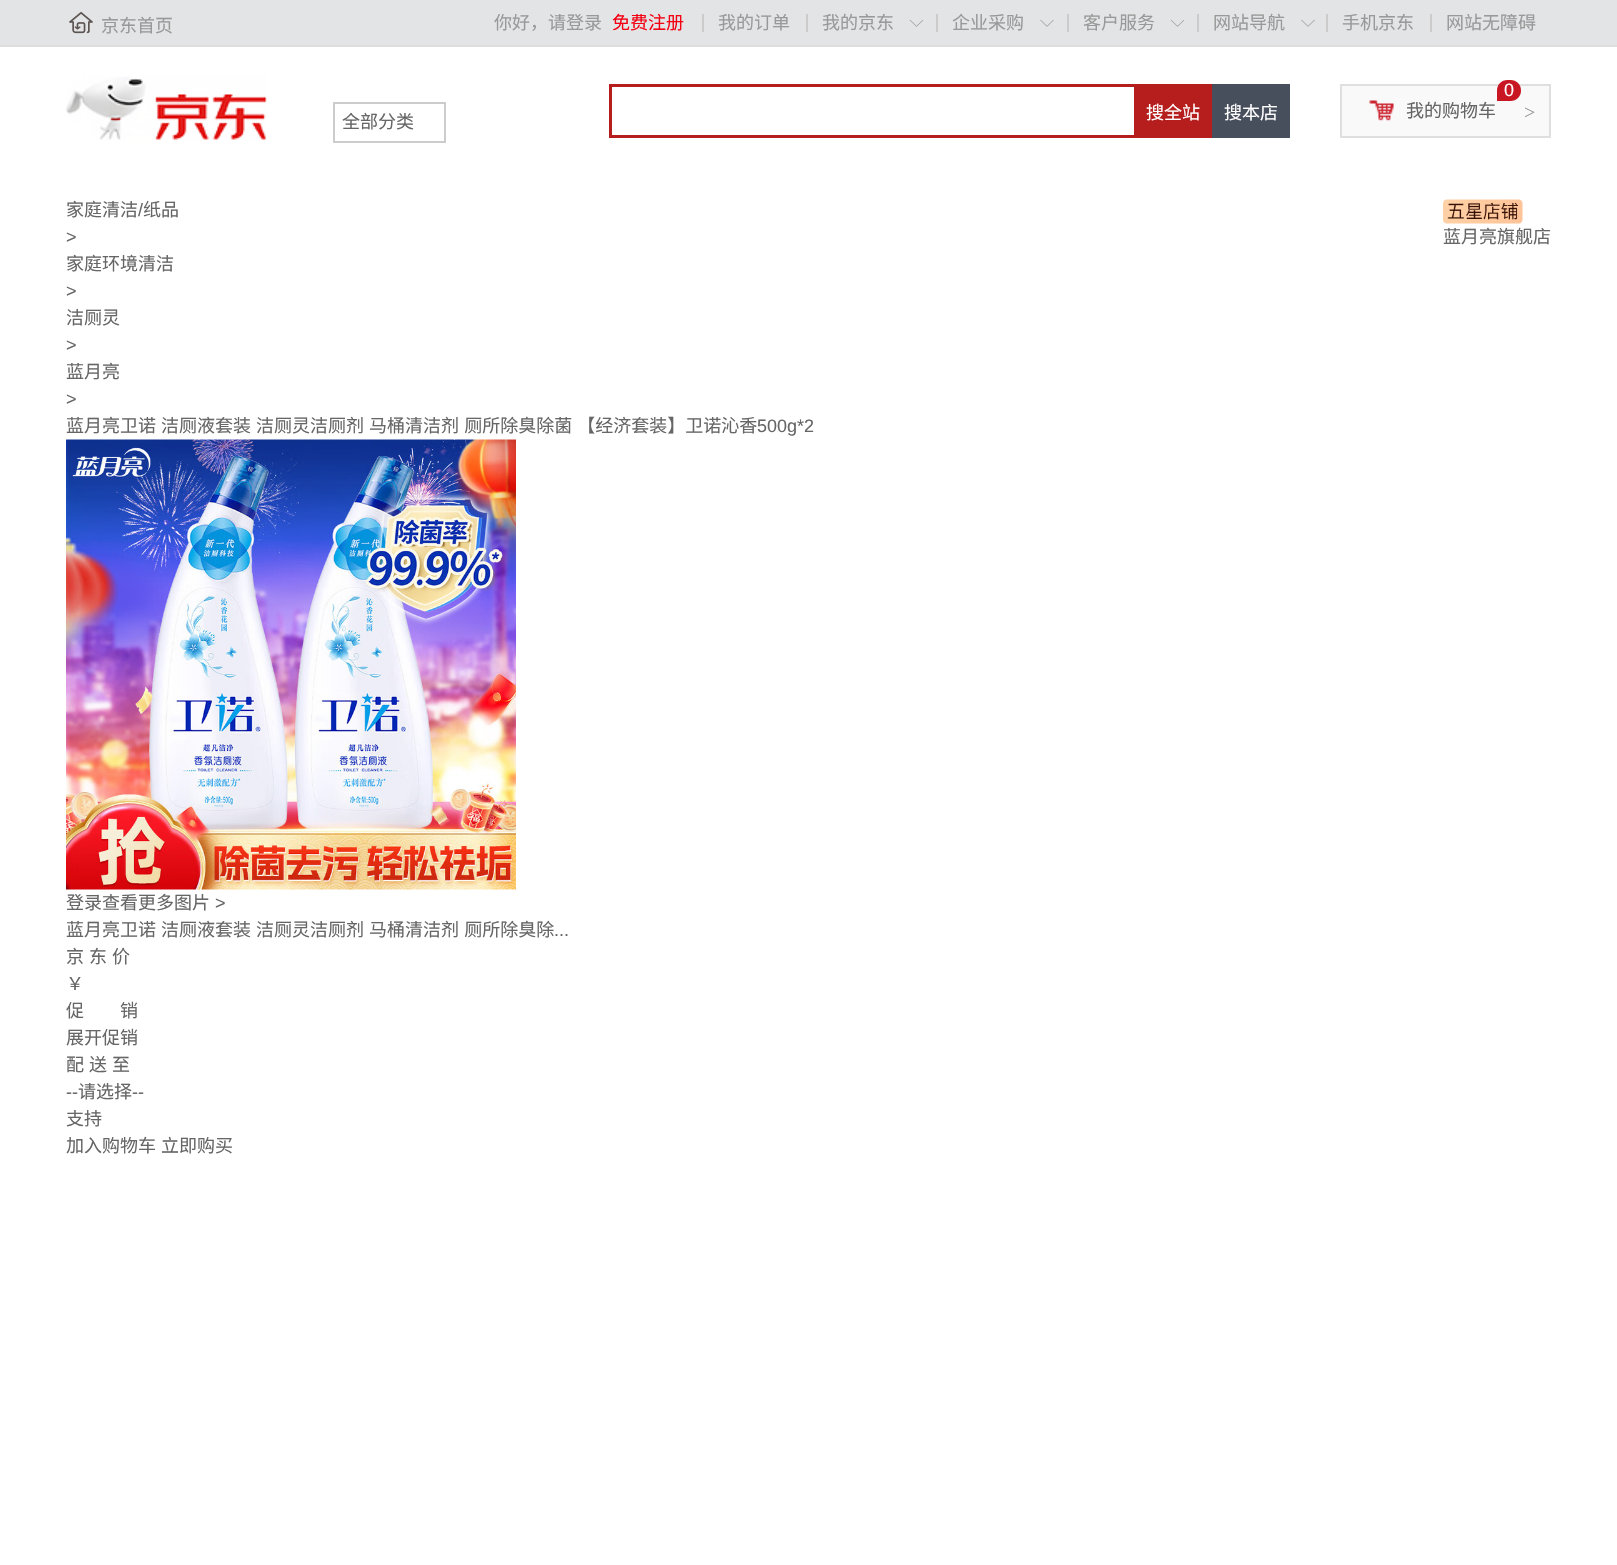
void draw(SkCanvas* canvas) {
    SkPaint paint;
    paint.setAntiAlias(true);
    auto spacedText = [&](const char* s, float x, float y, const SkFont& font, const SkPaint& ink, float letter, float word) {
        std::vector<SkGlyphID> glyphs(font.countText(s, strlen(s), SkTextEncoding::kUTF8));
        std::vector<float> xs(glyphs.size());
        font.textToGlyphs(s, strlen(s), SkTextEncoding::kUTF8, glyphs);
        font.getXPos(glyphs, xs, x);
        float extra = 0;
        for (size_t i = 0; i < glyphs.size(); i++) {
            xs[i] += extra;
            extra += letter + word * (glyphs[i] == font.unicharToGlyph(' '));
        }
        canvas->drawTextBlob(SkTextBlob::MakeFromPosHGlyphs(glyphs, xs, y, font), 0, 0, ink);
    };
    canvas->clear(0xFFFFFFFF);
    paint.setColor(0xFFE3E4E5);
    canvas->drawRect(SkRect::MakeXYWH(0, 0, 1617, 45), paint);
    paint.setColor(0xFFDDDDDD);
    canvas->drawRect(SkRect::MakeXYWH(0, 45, 1617, 2), paint);
    canvas->drawImageRect(SkImages::DeferredFromEncodedData(SkData::MakeFromFileName("img1.png")), SkRect::MakeXYWH(69, 12, 24, 22), SkSamplingOptions());
    SkFont font1(fontMgr->matchFamilyStyle("Noto Sans CJK SC", SkFontStyle::Normal()), 18);
    font1.setSubpixel(true);
    paint.setColor(0xFF999999);
    canvas->drawString("京东首页", 101, 32, font1, paint);
    canvas->drawString("你好，请登录", 494, 29, font1, paint);
    paint.setColor(0xFFF30213);
    canvas->drawString("免费注册", 612, 29, font1, paint);
    paint.setColor(0xFFCCCCCC);
    canvas->drawRect(SkRect::MakeXYWH(702, 14, 2, 18), paint);
    paint.setColor(0xFF999999);
    canvas->drawString("我的订单", 718, 29, font1, paint);
    paint.setColor(0xFFCCCCCC);
    canvas->drawRect(SkRect::MakeXYWH(806, 14, 2, 18), paint);
    paint.setColor(0xFF999999);
    canvas->drawString("我的京东", 822, 29, font1, paint);
    canvas->drawImageRect(SkImages::DeferredFromEncodedData(SkData::MakeFromFileName("img2.png")), SkRect::MakeXYWH(909, 20, 15, 7), SkSamplingOptions());
    paint.setColor(0xFFCCCCCC);
    canvas->drawRect(SkRect::MakeXYWH(936, 14, 2, 18), paint);
    paint.setColor(0xFF999999);
    canvas->drawString("企业采购", 952, 29, font1, paint);
    canvas->drawImageRect(SkImages::DeferredFromEncodedData(SkData::MakeFromFileName("img3.png")), SkRect::MakeXYWH(1040, 19, 14, 8), SkSamplingOptions());
    paint.setColor(0xFFCCCCCC);
    canvas->drawRect(SkRect::MakeXYWH(1067, 14, 2, 18), paint);
    paint.setColor(0xFF999999);
    canvas->drawString("客户服务", 1083, 29, font1, paint);
    canvas->drawImageRect(SkImages::DeferredFromEncodedData(SkData::MakeFromFileName("img2.png")), SkRect::MakeXYWH(1170, 20, 15, 7), SkSamplingOptions());
    paint.setColor(0xFFCCCCCC);
    canvas->drawRect(SkRect::MakeXYWH(1197, 14, 2, 18), paint);
    paint.setColor(0xFF999999);
    canvas->drawString("网站导航", 1213, 29, font1, paint);
    canvas->drawImageRect(SkImages::DeferredFromEncodedData(SkData::MakeFromFileName("img3.png")), SkRect::MakeXYWH(1301, 19, 14, 8), SkSamplingOptions());
    paint.setColor(0xFFCCCCCC);
    canvas->drawRect(SkRect::MakeXYWH(1326, 14, 2, 18), paint);
    paint.setColor(0xFF999999);
    canvas->drawString("手机京东", 1342, 29, font1, paint);
    paint.setColor(0xFFCCCCCC);
    canvas->drawRect(SkRect::MakeXYWH(1430, 14, 2, 18), paint);
    paint.setColor(0xFF999999);
    canvas->drawString("网站无障碍", 1446, 29, font1, paint);
    canvas->drawImageRect(SkImages::DeferredFromEncodedData(SkData::MakeFromFileName("img4.png")), SkRect::MakeXYWH(66, 76, 201, 64), SkSamplingOptions());
    paint.setStyle(SkPaint::kStroke_Style);
    paint.setStrokeWidth(2);
    paint.setColor(0xFFCCCCCC);
    canvas->drawRect(SkRect::MakeXYWH(334, 103, 111, 39), paint);
    paint.setStyle(SkPaint::kFill_Style);
    paint.setColor(0xFF666666);
    canvas->drawString("全部分类", 342, 128, font1, paint);
    paint.setColor(0xFFB61D1D);
    canvas->drawRect(SkRect::MakeXYWH(609, 84, 525, 3), paint);
    canvas->drawRect(SkRect::MakeXYWH(609, 135, 525, 3), paint);
    canvas->drawRect(SkRect::MakeXYWH(609, 84, 3, 54), paint);
    canvas->drawRect(SkRect::MakeXYWH(1134, 84, 78, 54), paint);
    paint.setColor(0xFFFFFFFF);
    canvas->drawString("搜全站", 1146, 119, font1, paint);
    paint.setColor(0xFF474E5C);
    canvas->drawRect(SkRect::MakeXYWH(1212, 84, 78, 54), paint);
    paint.setColor(0xFFFFFFFF);
    canvas->drawString("搜本店", 1224, 119, font1, paint);
    paint.setColor(0xFFF9F9F9);
    canvas->drawRect(SkRect::MakeXYWH(1341, 85, 209, 52), paint);
    paint.setStyle(SkPaint::kStroke_Style);
    paint.setColor(0xFFDFDFDF);
    canvas->drawRect(SkRect::MakeXYWH(1341, 85, 209, 52), paint);
    paint.setStyle(SkPaint::kFill_Style);
    paint.setColor(0xFFC81623);
    canvas->drawPath(SkPathBuilder().moveTo(1507.5f, 80).lineTo(1510.5f, 80).cubicTo(1516.5f, 80, 1521, 84.5f, 1521, 90.5f).cubicTo(1521, 96.5f, 1516.5f, 101, 1510.5f, 101).lineTo(1497, 101).lineTo(1497, 90.5f).cubicTo(1497, 84.5f, 1501.5f, 80, 1507.5f, 80).close().detach(), paint);
    SkFont font2(fontMgr->matchFamilyStyle("Liberation Sans", SkFontStyle::Normal()), 18);
    font2.setSubpixel(true);
    paint.setColor(0xFFFFFFFF);
    canvas->drawString("0", 1504, 96, font2, paint);
    canvas->drawImageRect(SkImages::DeferredFromEncodedData(SkData::MakeFromFileName("img5.png")), SkRect::MakeXYWH(1369, 100, 25, 21), SkSamplingOptions());
    paint.setColor(0xFF666666);
    canvas->drawString("我的购物车", 1406, 117, font1, paint);
    SkFont font3(fontMgr->matchFamilyStyle("Liberation Serif", SkFontStyle::Normal()), 20);
    font3.setSubpixel(true);
    paint.setColor(0xFF999999);
    canvas->drawString(">", 1524, 119, font3, paint);
    paint.setColor(0xFF666666);
    canvas->drawString("家庭清洁", 66, 216, font1, paint);
    canvas->drawString("/", 138, 216, font2, paint);
    canvas->drawString("纸品", 143, 216, font1, paint);
    canvas->drawString(">", 66, 243, font2, paint);
    canvas->drawString("家庭环境清洁", 66, 270, font1, paint);
    canvas->drawString(">", 66, 297, font2, paint);
    canvas->drawString("洁厕灵", 66, 324, font1, paint);
    canvas->drawString(">", 66, 351, font2, paint);
    canvas->drawString("蓝月亮", 66, 378, font1, paint);
    canvas->drawString(">", 66, 405, font2, paint);
    spacedText("蓝月亮卫诺 洁厕液套装 洁厕灵洁厕剂 马桶清洁剂 厕所除臭除菌 【经济套装】卫诺沁香", 66, 432, font1, paint, 0, 1);
    canvas->drawString("500g*2", 757, 432, font2, paint);
    canvas->drawImageRect(SkImages::DeferredFromEncodedData(SkData::MakeFromFileName("img6.png")), SkRect::MakeXYWH(1443, 199, 80, 25), SkSamplingOptions());
    canvas->drawString("蓝月亮旗舰店", 1443, 243, font1, paint);
    canvas->drawImageRect(SkImages::DeferredFromEncodedData(SkData::MakeFromFileName("img7.png")), SkRect::MakeXYWH(66, 439, 450, 451), SkSamplingOptions());
    canvas->drawString("登录查看更多图片", 66, 909, font1, paint);
    canvas->drawString(">", 215, 909, font2, paint);
    spacedText("蓝月亮卫诺 洁厕液套装 洁厕灵洁厕剂 马桶清洁剂 厕所除臭除", 66, 936, font1, paint, 0, 1);
    canvas->drawString("...", 554, 936, font2, paint);
    spacedText("京 东 价", 66, 963, font1, paint, 0, 1);
    canvas->drawString("￥", 66, 990, font1, paint);
    canvas->drawString("促　　销", 66, 1017, font1, paint);
    canvas->drawString("展开促销", 66, 1044, font1, paint);
    spacedText("配 送 至", 66, 1071, font1, paint, 0, 1);
    canvas->drawString("--", 66, 1098, font2, paint);
    canvas->drawString("请选择", 78, 1098, font1, paint);
    canvas->drawString("--", 132, 1098, font2, paint);
    canvas->drawString("支持", 66, 1125, font1, paint);
    canvas->drawString("加入购物车", 66, 1152, font1, paint);
    canvas->drawString("立即购买", 161, 1152, font1, paint);
}
